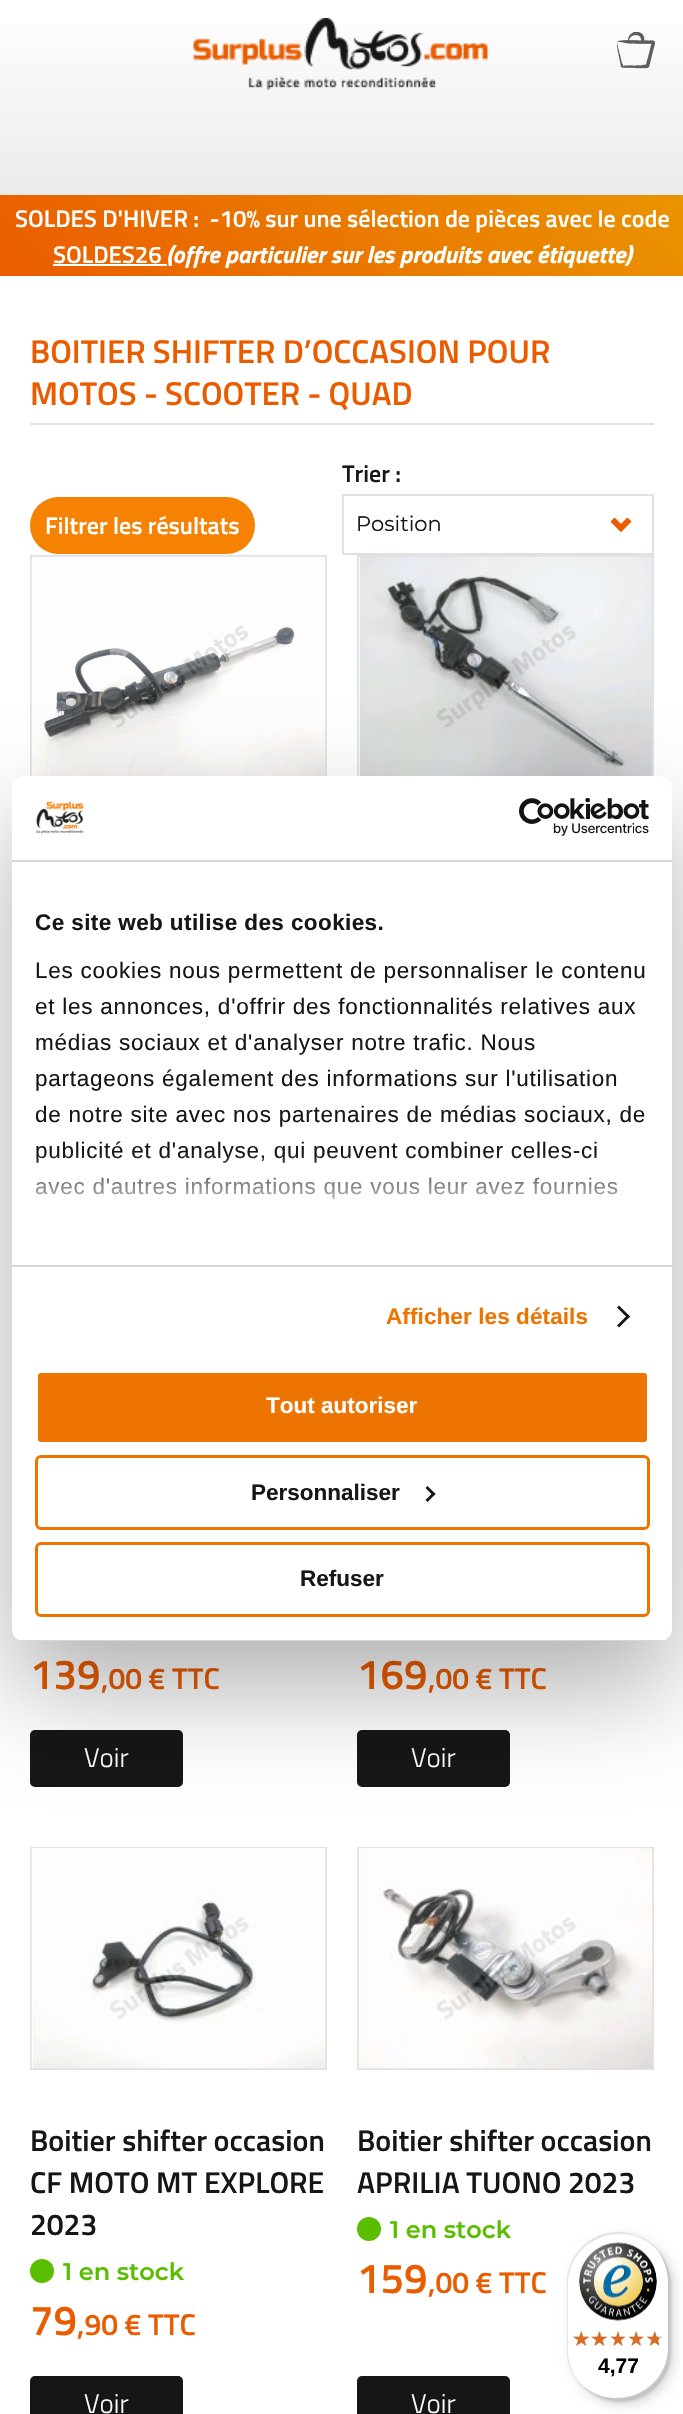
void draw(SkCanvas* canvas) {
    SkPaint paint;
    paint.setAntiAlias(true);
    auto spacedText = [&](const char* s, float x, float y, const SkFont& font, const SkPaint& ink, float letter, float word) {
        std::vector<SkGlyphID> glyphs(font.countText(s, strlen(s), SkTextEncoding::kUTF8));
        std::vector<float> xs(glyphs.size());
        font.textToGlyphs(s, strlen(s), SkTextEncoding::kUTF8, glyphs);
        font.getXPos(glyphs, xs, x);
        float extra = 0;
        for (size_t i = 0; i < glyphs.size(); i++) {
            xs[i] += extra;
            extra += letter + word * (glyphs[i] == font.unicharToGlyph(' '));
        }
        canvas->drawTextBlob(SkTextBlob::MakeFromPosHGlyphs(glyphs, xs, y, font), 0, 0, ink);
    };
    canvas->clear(0xFFFFFFFF);
    {
        const SkColor colors[] = {0xFFEBEBEB, 0xFFFFFFFF};
        const float stops[] = {0, 1};
        const SkPoint ends[] = {{342, 195}, {342, 0}};
        paint.setShader(SkGradientShader::MakeLinear(ends, colors, stops, 2, SkTileMode::kClamp));
        paint.setAlpha(255);
    }
    canvas->drawRect(SkRect::MakeXYWH(0, 24, 683, 171), paint);
    canvas->drawImageRect(SkImages::DeferredFromEncodedData(SkData::MakeFromFileName("img1.png")), SkRect::MakeXYWH(193, 18, 295, 72), SkSamplingOptions());
    canvas->drawImageRect(SkImages::DeferredFromEncodedData(SkData::MakeFromFileName("img2.png")), SkRect::MakeXYWH(617, 32, 38, 37), SkSamplingOptions());
    {
        const SkColor colors[] = {0xFFEA5C00, 0xFFEA9400};
        const float stops[] = {0, 1};
        const SkPoint ends[] = {{151, 427}, {533, 44}};
        paint.setShader(SkGradientShader::MakeLinear(ends, colors, stops, 2, SkTileMode::kClamp));
        paint.setAlpha(255);
    }
    canvas->drawRect(SkRect::MakeXYWH(0, 195, 683, 81), paint);
    SkFont font1(fontMgr->matchFamilyStyle("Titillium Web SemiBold", SkFontStyle(600, SkFontStyle::kNormal_Width, SkFontStyle::kUpright_Slant)), 24);
    font1.setSubpixel(true);
    paint.setShader(nullptr);
    paint.setColor(0xFFFFFFFF);
    canvas->drawString("SOLDES D'HIVER :  -10% sur une sélection de pièces avec le code", 15, 227, font1, paint);
    canvas->drawString("SOLDES26", 53, 263, font1, paint);
    canvas->drawRect(SkRect::MakeXYWH(53, 264, 114, 2), paint);
    SkFont font2(fontMgr->matchFamilyStyle("Titillium Web", SkFontStyle::BoldItalic()), 24);
    font2.setSubpixel(true);
    canvas->drawString("(offre particulier sur les produits avec étiquette)", 167, 263, font2, paint);
    paint.setColor(0xFFE1E1E1);
    canvas->drawRect(SkRect::MakeXYWH(30, 423, 624, 2), paint);
    SkFont font3(fontMgr->matchFamilyStyle("Titillium Web SemiBold", SkFontStyle(600, SkFontStyle::kNormal_Width, SkFontStyle::kUpright_Slant)), 33);
    font3.setSubpixel(true);
    paint.setColor(0xFFEA5C00);
    canvas->drawString("BOITIER SHIFTER D’OCCASION POUR", 30, 363, font3, paint);
    canvas->drawString("MOTOS - SCOOTER - QUAD", 30, 405, font3, paint);
    paint.setColor(0xFF161615);
    canvas->drawString("Trier :", 342, 482, font1, paint);
    canvas->save();
    canvas->clipRect(SkRect::MakeXYWH(611, 518, 21, 15));
    paint.setStyle(SkPaint::kStroke_Style);
    paint.setStrokeWidth(5.9f);
    paint.setColor(0xFFEA5C00);
    canvas->drawPath(SkPathBuilder().moveTo(612.5f, 519.5f).lineTo(621, 528).lineTo(629.5f, 519.5f).detach(), paint);
    canvas->restore();
    paint.setStrokeWidth(2);
    paint.setColor(0xFFE1E1E1);
    canvas->drawRect(SkRect::MakeXYWH(343, 495, 310, 59), paint);
    SkFont font4(fontMgr->matchFamilyStyle("Montserrat", SkFontStyle::Normal()), 21);
    font4.setSubpixel(true);
    paint.setStyle(SkPaint::kFill_Style);
    paint.setColor(0xFF161615);
    canvas->drawString("Position", 356, 531, font4, paint);
    paint.setStyle(SkPaint::kStroke_Style);
    paint.setColor(0xFFE1E1E1);
    canvas->drawRect(SkRect::MakeXYWH(31, 556, 295, 222), paint);
    canvas->drawImageRect(SkImages::DeferredFromEncodedData(SkData::MakeFromFileName("img3.png")), SkRect::MakeXYWH(31, 556, 295, 220), SkSamplingOptions());
    canvas->drawRect(SkRect::MakeXYWH(358, 556, 295, 222), paint);
    canvas->drawImageRect(SkImages::DeferredFromEncodedData(SkData::MakeFromFileName("img4.png")), SkRect::MakeXYWH(358, 556, 295, 220), SkSamplingOptions());
    SkFont font5(fontMgr->matchFamilyStyle("Titillium Web SemiBold", SkFontStyle(600, SkFontStyle::kNormal_Width, SkFontStyle::kUpright_Slant)), 42);
    font5.setSubpixel(true);
    paint.setStyle(SkPaint::kFill_Style);
    paint.setColor(0xFFEA5C00);
    canvas->drawString("139", 30, 1689, font5, paint);
    SkFont font6(fontMgr->matchFamilyStyle("Titillium Web SemiBold", SkFontStyle(600, SkFontStyle::kNormal_Width, SkFontStyle::kUpright_Slant)), 30);
    font6.setSubpixel(true);
    canvas->drawString(",00 € TTC", 101, 1689, font6, paint);
    paint.setColor(0xFF161615);
    canvas->drawRoundRect(SkRect::MakeXYWH(30, 1730, 153, 57), 5, 5, paint);
    SkFont font7(fontMgr->matchFamilyStyle("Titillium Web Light", SkFontStyle(300, SkFontStyle::kNormal_Width, SkFontStyle::kUpright_Slant)), 27);
    font7.setSubpixel(true);
    paint.setColor(0xFFFFFFFF);
    canvas->drawString("Voir", 84, 1767, font7, paint);
    paint.setColor(0xFFEA5C00);
    canvas->drawString("169", 357, 1689, font5, paint);
    canvas->drawString(",00 € TTC", 428, 1689, font6, paint);
    paint.setColor(0xFF161615);
    canvas->drawRoundRect(SkRect::MakeXYWH(357, 1730, 153, 57), 5, 5, paint);
    paint.setColor(0xFFFFFFFF);
    canvas->drawString("Voir", 411, 1767, font7, paint);
    paint.setStyle(SkPaint::kStroke_Style);
    paint.setColor(0xFFE1E1E1);
    canvas->drawRect(SkRect::MakeXYWH(31, 1848, 295, 221), paint);
    canvas->drawImageRect(SkImages::DeferredFromEncodedData(SkData::MakeFromFileName("img5.png")), SkRect::MakeXYWH(31, 1848, 295, 221), SkSamplingOptions());
    paint.setStyle(SkPaint::kFill_Style);
    paint.setColor(0xFF161615);
    canvas->drawString("Boitier shifter occasion", 30, 2151, font6, paint);
    canvas->drawString("CF MOTO MT EXPLORE", 30, 2193, font6, paint);
    canvas->drawString("2023", 30, 2235, font6, paint);
    paint.setColor(0xFF59BE00);
    canvas->drawCircle(42, 2271, 12, paint);
    SkFont font8(fontMgr->matchFamilyStyle("Montserrat", SkFontStyle(600, SkFontStyle::kNormal_Width, SkFontStyle::kUpright_Slant)), 24);
    font8.setSubpixel(true);
    canvas->drawString("1 en stock", 63, 2280, font8, paint);
    paint.setColor(0xFFEA5C00);
    canvas->drawString("79", 30, 2335, font5, paint);
    canvas->drawString(",90 € TTC", 77, 2335, font6, paint);
    paint.setColor(0xFF161615);
    canvas->drawRoundRect(SkRect::MakeXYWH(30, 2376, 153, 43), 5, 5, paint);
    paint.setColor(0xFFFFFFFF);
    canvas->drawString("Voir", 84, 2413, font7, paint);
    paint.setStyle(SkPaint::kStroke_Style);
    paint.setColor(0xFFE1E1E1);
    canvas->drawRect(SkRect::MakeXYWH(358, 1848, 295, 221), paint);
    canvas->drawImageRect(SkImages::DeferredFromEncodedData(SkData::MakeFromFileName("img6.png")), SkRect::MakeXYWH(358, 1848, 295, 221), SkSamplingOptions());
    paint.setStyle(SkPaint::kFill_Style);
    paint.setColor(0xFF161615);
    canvas->drawString("Boitier shifter occasion", 357, 2151, font6, paint);
    canvas->drawString("APRILIA TUONO 2023", 357, 2193, font6, paint);
    paint.setColor(0xFF59BE00);
    canvas->drawCircle(369, 2229, 12, paint);
    canvas->drawString("1 en stock", 390, 2238, font8, paint);
    paint.setColor(0xFFEA5C00);
    canvas->drawString("159", 357, 2293, font5, paint);
    canvas->drawString(",00 € TTC", 428, 2293, font6, paint);
    paint.setColor(0xFF161615);
    canvas->drawRoundRect(SkRect::MakeXYWH(357, 2376, 153, 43), 5, 5, paint);
    paint.setColor(0xFFFFFFFF);
    canvas->drawString("Voir", 411, 2413, font7, paint);
    paint.setColor(0xFFF58202);
    canvas->drawRoundRect(SkRect::MakeXYWH(30, 497, 225, 57), 28.5f, 28.5f, paint);
    paint.setColor(0xFFFFFFFF);
    canvas->drawString("Filtrer les résultats", 45, 534, font1, paint);
    paint.setColor(0x4D000000);
    paint.setMaskFilter(SkMaskFilter::MakeBlur(kNormal_SkBlurStyle, 51));
    canvas->drawRoundRect(SkRect::MakeXYWH(12, 824, 660, 865), 12, 12, paint);
    paint.setMaskFilter(nullptr);
    paint.setColor(0xFFFFFFFF);
    canvas->drawRoundRect(SkRect::MakeXYWH(12, 776, 660, 865), 12, 12, paint);
    paint.setColor(0xFFD6D6D6);
    canvas->drawRect(SkRect::MakeXYWH(12, 860, 660, 2), paint);
    canvas->drawImageRect(SkImages::DeferredFromEncodedData(SkData::MakeFromFileName("img7.png")), SkRect::MakeXYWH(36, 801, 48, 33), SkSamplingOptions());
    canvas->drawImageRect(SkImages::DeferredFromEncodedData(SkData::MakeFromFileName("img8.png")), SkRect::MakeXYWH(519, 798, 130, 38), SkSamplingOptions());
    canvas->drawRect(SkRect::MakeXYWH(12, 1265, 660, 2), paint);
    SkFont font9(fontMgr->matchFamilyStyle("Liberation Sans", SkFontStyle::Bold()), 22.5f);
    font9.setSubpixel(true);
    paint.setColor(0xFF161615);
    spacedText("Ce site web utilise des cookies.", 35, 930, font9, paint, 0.4f, 0);
    SkFont font10(fontMgr->matchFamilyStyle("Liberation Sans", SkFontStyle::Normal()), 22.5f);
    font10.setSubpixel(true);
    spacedText("Les cookies nous permettent de personnaliser le contenu", 35, 978, font10, paint, 0.75f, 0);
    spacedText("et les annonces, d'offrir des fonctionnalités relatives aux", 35, 1014, font10, paint, 0.75f, 0);
    spacedText("médias sociaux et d'analyser notre trafic. Nous", 35, 1050, font10, paint, 0.75f, 0);
    spacedText("partageons également des informations sur l'utilisation", 35, 1086, font10, paint, 0.75f, 0);
    spacedText("de notre site avec nos partenaires de médias sociaux, de", 35, 1122, font10, paint, 0.75f, 0);
    spacedText("publicité et d'analyse, qui peuvent combiner celles-ci", 35, 1158, font10, paint, 0.75f, 0);
    spacedText("avec d'autres informations que vous leur avez fournies", 35, 1194, font10, paint, 0.75f, 0);
    {
        const SkColor colors[] = {0xFFFFFFFF, 0xCCFFFFFF, 0x00FFFFFF};
        const float stops[] = {0, 0.5f, 1};
        const SkPoint ends[] = {{332, 1264}, {332, 1152}};
        paint.setShader(SkGradientShader::MakeLinear(ends, colors, stops, 3, SkTileMode::kClamp));
        paint.setAlpha(255);
    }
    canvas->drawRect(SkRect::MakeXYWH(35, 1154, 582, 45), paint);
    paint.setShader(nullptr);
    paint.setColor(0xFFEE7402);
    spacedText("Afficher les détails", 386, 1324, font9, paint, 0.1f, 0);
    paint.setColor(0xFF141414);
    canvas->drawPath(SkPathBuilder().moveTo(619, 1305.5f).lineTo(630, 1316.5f).lineTo(628, 1318.5f).lineTo(617, 1307.5f).close().detach(), paint);
    canvas->drawPath(SkPathBuilder().moveTo(628, 1314.5f).lineTo(630, 1316.5f).lineTo(619, 1327.5f).lineTo(617, 1325.5f).close().detach(), paint);
    canvas->save();
    canvas->clipPath(SkPathBuilder().moveTo(24, 776).lineTo(660, 776).cubicTo(666.5f, 776, 672, 781.5f, 672, 788).lineTo(672, 1629).cubicTo(672, 1635.5f, 666.5f, 1641, 660, 1641).lineTo(24, 1641).cubicTo(17.5f, 1641, 12, 1635.5f, 12, 1629).lineTo(12, 788).cubicTo(12, 781.5f, 17.5f, 776, 24, 776).close().detach(), true);
    paint.setColor(0xFFD6D6D6);
    canvas->drawRect(SkRect::MakeXYWH(12, 1640, 660, 1), paint);
    canvas->restore();
    paint.setColor(0xFFEE7402);
    canvas->drawRoundRect(SkRect::MakeXYWH(36.5f, 1371.5f, 612, 72), 4.5f, 4.5f, paint);
    paint.setStyle(SkPaint::kStroke_Style);
    paint.setStrokeWidth(3);
    paint.setColor(0xFFFFFFFF);
    canvas->drawRoundRect(SkRect::MakeXYWH(36.5f, 1371.5f, 612, 72), 4.5f, 4.5f, paint);
    paint.setStyle(SkPaint::kFill_Style);
    canvas->drawString("Tout autoriser", 266, 1413, font9, paint);
    paint.setStyle(SkPaint::kStroke_Style);
    paint.setColor(0xFFEE7402);
    canvas->drawRoundRect(SkRect::MakeXYWH(36.5f, 1456.5f, 612, 72), 4.5f, 4.5f, paint);
    paint.setStyle(SkPaint::kFill_Style);
    paint.setColor(0xFF161615);
    canvas->drawString("Personnaliser", 251, 1500, font9, paint);
    paint.setColor(0xFF141414);
    canvas->drawPath(SkPathBuilder().moveTo(427.5f, 1486).lineTo(435.5f, 1494).lineTo(433.5f, 1496).lineTo(425.5f, 1488).close().detach(), paint);
    canvas->drawPath(SkPathBuilder().moveTo(433.5f, 1492).lineTo(435.5f, 1494).lineTo(427.5f, 1502).lineTo(425.5f, 1500).close().detach(), paint);
    paint.setStyle(SkPaint::kStroke_Style);
    paint.setColor(0xFFEE7402);
    canvas->drawRoundRect(SkRect::MakeXYWH(36.5f, 1543.5f, 612, 72), 4.5f, 4.5f, paint);
    paint.setStyle(SkPaint::kFill_Style);
    paint.setColor(0xFF161615);
    canvas->drawString("Refuser", 300, 1586, font9, paint);
    paint.setColor(0x26000000);
    paint.setMaskFilter(SkMaskFilter::MakeBlur(kNormal_SkBlurStyle, 6));
    canvas->drawRoundRect(SkRect::MakeXYWH(572, 2237, 102, 168), 51, 51, paint);
    paint.setMaskFilter(nullptr);
    paint.setMaskFilter(SkMaskFilter::MakeBlur(kNormal_SkBlurStyle, 1.5f));
    canvas->drawRoundRect(SkRect::MakeXYWH(569, 2234, 102, 168), 51, 51, paint);
    paint.setMaskFilter(nullptr);
    paint.setColor(0xFFFFFFFF);
    canvas->drawRoundRect(SkRect::MakeXYWH(567, 2232, 102, 168), 51, 51, paint);
    paint.setColor(0x1A000000);
    canvas->drawPath(SkPathBuilder().moveTo(620, 2234).cubicTo(634, 2234, 647, 2240, 656, 2249).cubicTo(647, 2239, 633, 2232, 618, 2232).cubicTo(590, 2232, 567, 2255, 567, 2283).lineTo(567, 2349).cubicTo(567, 2360, 570, 2370, 576, 2378).cubicTo(571, 2370, 568, 2360, 568, 2350).lineTo(568, 2284).cubicTo(568, 2256, 591, 2234, 620, 2234).close().detach(), paint);
    paint.setColor(0x33000000);
    canvas->drawPath(SkPathBuilder().moveTo(580, 2383).cubicTo(589, 2393, 603, 2400, 618, 2400).cubicTo(646, 2400, 669, 2377, 669, 2349).lineTo(669, 2283).cubicTo(669, 2272, 666, 2262, 660, 2254).cubicTo(665, 2262, 668, 2272, 668, 2282).lineTo(668, 2348).cubicTo(668, 2376, 645, 2398, 616, 2398).cubicTo(602, 2398, 589, 2392, 580, 2383).close().detach(), paint);
    paint.setColor(0x33323232);
    canvas->drawPath(SkPathBuilder().moveTo(579, 2382).cubicTo(589, 2393, 603, 2400, 618, 2400).cubicTo(646, 2400, 669, 2377, 669, 2349).lineTo(669, 2283).cubicTo(669, 2268, 662, 2254, 651, 2244).cubicTo(662, 2254, 668, 2267, 668, 2282).lineTo(668, 2348).cubicTo(668, 2376, 645, 2399, 617, 2399).cubicTo(602, 2399, 589, 2393, 579, 2382).close().detach(), paint);
    paint.setColor(0x4DFFFFFF);
    canvas->drawPath(SkPathBuilder().moveTo(579, 2382).cubicTo(589, 2393, 603, 2400, 618, 2400).cubicTo(646, 2400, 669, 2377, 669, 2349).lineTo(669, 2283).cubicTo(669, 2268, 662, 2254, 651, 2244).cubicTo(662, 2254, 668, 2267, 668, 2282).lineTo(668, 2348).cubicTo(668, 2376, 645, 2399, 617, 2399).cubicTo(602, 2399, 589, 2393, 579, 2382).close().detach(), paint);
    canvas->drawImageRect(SkImages::DeferredFromEncodedData(SkData::MakeFromFileName("img9.png")), SkRect::MakeXYWH(579, 2242, 78, 79), SkSamplingOptions());
    canvas->drawImageRect(SkImages::DeferredFromEncodedData(SkData::MakeFromFileName("img10.png")), SkRect::MakeXYWH(573, 2331, 16, 15), SkSamplingOptions());
    canvas->drawImageRect(SkImages::DeferredFromEncodedData(SkData::MakeFromFileName("img11.png")), SkRect::MakeXYWH(593, 2331, 14, 15), SkSamplingOptions());
    canvas->drawImageRect(SkImages::DeferredFromEncodedData(SkData::MakeFromFileName("img12.png")), SkRect::MakeXYWH(611, 2331, 14, 15), SkSamplingOptions());
    canvas->drawImageRect(SkImages::DeferredFromEncodedData(SkData::MakeFromFileName("img13.png")), SkRect::MakeXYWH(629, 2331, 16, 15), SkSamplingOptions());
    canvas->drawImageRect(SkImages::DeferredFromEncodedData(SkData::MakeFromFileName("img14.png")), SkRect::MakeXYWH(647, 2331, 16, 15), SkSamplingOptions());
    canvas->drawImageRect(SkImages::DeferredFromEncodedData(SkData::MakeFromFileName("img15.png")), SkRect::MakeXYWH(573, 2331, 16, 15), SkSamplingOptions());
    canvas->drawImageRect(SkImages::DeferredFromEncodedData(SkData::MakeFromFileName("img16.png")), SkRect::MakeXYWH(591, 2331, 16, 15), SkSamplingOptions());
    canvas->drawImageRect(SkImages::DeferredFromEncodedData(SkData::MakeFromFileName("img17.png")), SkRect::MakeXYWH(611, 2331, 14, 15), SkSamplingOptions());
    canvas->drawImageRect(SkImages::DeferredFromEncodedData(SkData::MakeFromFileName("img18.png")), SkRect::MakeXYWH(629, 2331, 14, 15), SkSamplingOptions());
    canvas->drawImageRect(SkImages::DeferredFromEncodedData(SkData::MakeFromFileName("img19.png")), SkRect::MakeXYWH(647, 2331, 12, 15), SkSamplingOptions());
    SkFont font11(fontMgr->matchFamilyStyle("Liberation Sans", SkFontStyle::Bold()), 21);
    font11.setSubpixel(true);
    paint.setColor(0xFF000000);
    canvas->drawString("4,77", 598, 2373, font11, paint);
}
